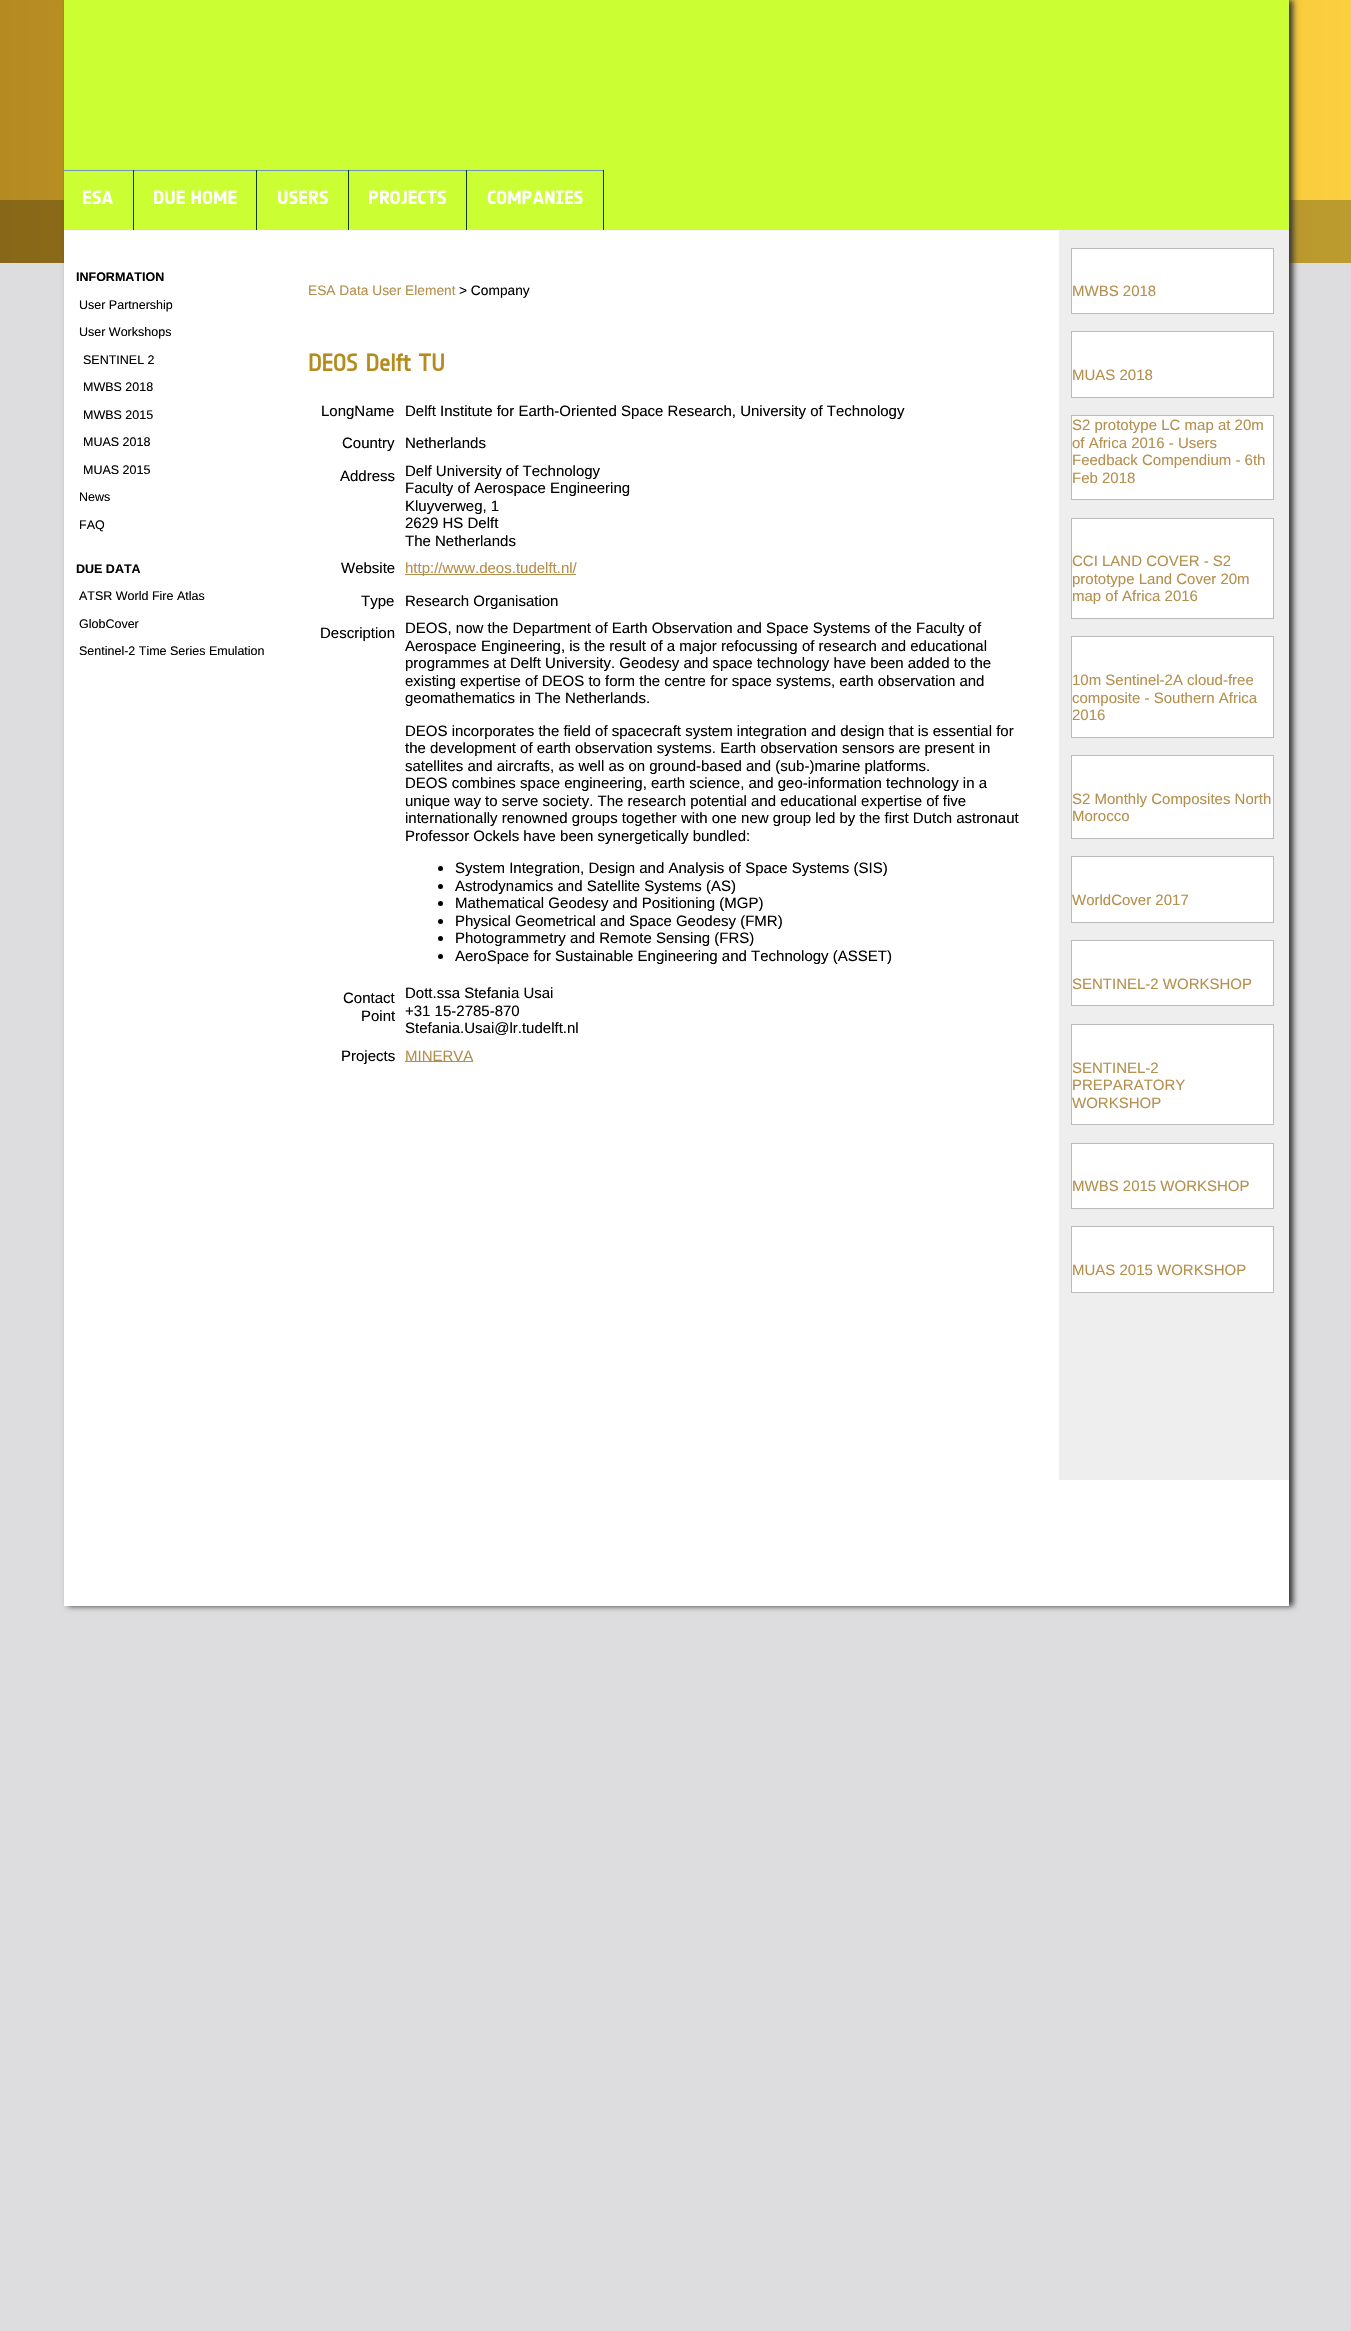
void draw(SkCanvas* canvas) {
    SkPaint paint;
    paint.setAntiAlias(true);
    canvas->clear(0xFFDDDDDF);
    {
        const SkColor colors[] = {0xFFB58A21, 0xFFFBCF3E};
        const float stops[] = {0, 1};
        const SkPoint ends[] = {{0, 100}, {1351, 100}};
        paint.setShader(SkGradientShader::MakeLinear(ends, colors, stops, 2, SkTileMode::kClamp));
        paint.setAlpha(255);
    }
    canvas->drawRect(SkRect::MakeXYWH(0, 0, 1351, 200), paint);
    {
        const SkColor colors[] = {0xFF886718, 0xFFBC9C2E};
        const float stops[] = {0, 1};
        const SkPoint ends[] = {{0, 231}, {1351, 231}};
        paint.setShader(SkGradientShader::MakeLinear(ends, colors, stops, 2, SkTileMode::kClamp));
        paint.setAlpha(255);
    }
    canvas->drawRect(SkRect::MakeXYWH(0, 200, 1351, 63), paint);
    paint.setShader(nullptr);
    paint.setColor(0xFF323232);
    paint.setMaskFilter(SkMaskFilter::MakeBlur(kNormal_SkBlurStyle, 3));
    canvas->drawRect(SkRect::MakeXYWH(68, 0, 1225, 1606), paint);
    paint.setMaskFilter(nullptr);
    paint.setColor(0xFFFFFFFF);
    canvas->drawRect(SkRect::MakeXYWH(64, 230, 1225, 1376), paint);
    paint.setColor(0xFFCCFF33);
    canvas->drawRect(SkRect::MakeXYWH(64, 0, 1225, 230), paint);
    paint.setColor(0xFF7092BE);
    canvas->drawRect(SkRect::MakeXYWH(64, 170, 540, 1), paint);
    paint.setColor(0xFF0C3D1B);
    canvas->drawRect(SkRect::MakeXYWH(133, 170, 1, 60), paint);
    SkFont font1(fontMgr->matchFamilyStyle("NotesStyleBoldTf", SkFontStyle::Bold()), 18.75f);
    font1.setSubpixel(true);
    paint.setColor(0xFFFFFFFF);
    canvas->drawString("ESA", 82, 204, font1, paint);
    paint.setColor(0xFF0C3D1B);
    canvas->drawRect(SkRect::MakeXYWH(256, 170, 1, 60), paint);
    paint.setColor(0xFFFFFFFF);
    canvas->drawString("DUE HOME", 153, 204, font1, paint);
    paint.setColor(0xFF0C3D1B);
    canvas->drawRect(SkRect::MakeXYWH(348, 170, 1, 60), paint);
    paint.setColor(0xFFFFFFFF);
    canvas->drawString("USERS", 277, 204, font1, paint);
    paint.setColor(0xFF0C3D1B);
    canvas->drawRect(SkRect::MakeXYWH(466, 170, 1, 60), paint);
    paint.setColor(0xFFFFFFFF);
    canvas->drawString("PROJECTS", 368, 204, font1, paint);
    paint.setColor(0xFF0C3D1B);
    canvas->drawRect(SkRect::MakeXYWH(603, 170, 1, 60), paint);
    paint.setColor(0xFFFFFFFF);
    canvas->drawString("COMPANIES", 487, 204, font1, paint);
    SkFont font2(fontMgr->matchFamilyStyle("Liberation Sans", SkFontStyle::Bold()), 12.5f);
    font2.setSubpixel(true);
    paint.setColor(0xFF000000);
    canvas->drawString("INFORMATION", 76, 281, font2, paint);
    SkFont font3(fontMgr->matchFamilyStyle("Liberation Sans", SkFontStyle::Normal()), 12.5f);
    font3.setSubpixel(true);
    canvas->drawString("User Partnership", 79, 309, font3, paint);
    canvas->drawString("User Workshops", 79, 336, font3, paint);
    canvas->drawString("SENTINEL 2", 83, 364, font3, paint);
    canvas->drawString("MWBS 2018", 83, 391, font3, paint);
    canvas->drawString("MWBS 2015", 83, 419, font3, paint);
    canvas->drawString("MUAS 2018", 83, 446, font3, paint);
    canvas->drawString("MUAS 2015", 83, 474, font3, paint);
    canvas->drawString("News", 79, 501, font3, paint);
    canvas->drawString("FAQ", 79, 529, font3, paint);
    canvas->drawString("DUE DATA", 76, 573, font2, paint);
    canvas->drawString("ATSR World Fire Atlas", 79, 600, font3, paint);
    canvas->drawString("GlobCover", 79, 628, font3, paint);
    canvas->drawString("Sentinel-2 Time Series Emulation", 79, 655, font3, paint);
    SkFont font4(fontMgr->matchFamilyStyle("Liberation Sans", SkFontStyle::Normal()), 13.75f);
    font4.setSubpixel(true);
    paint.setColor(0xFFB58F4D);
    canvas->drawString("ESA Data User Element", 308, 295, font4, paint);
    paint.setColor(0xFF000000);
    canvas->drawString("> Company", 459, 295, font4, paint);
    SkFont font5(fontMgr->matchFamilyStyle("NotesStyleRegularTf", SkFontStyle::Bold()), 23.75f);
    font5.setSubpixel(true);
    paint.setColor(0xFFB58B1D);
    canvas->drawString("DEOS Delft TU", 308, 371, font5, paint);
    SkFont font6(fontMgr->matchFamilyStyle("Liberation Sans", SkFontStyle::Normal()), 15);
    font6.setSubpixel(true);
    paint.setColor(0xFF000000);
    canvas->drawString("LongName", 321, 416, font6, paint);
    canvas->drawString("Delft Institute for Earth-Oriented Space Research, University of Technology", 405, 416, font6, paint);
    canvas->drawString("Country", 342, 448, font6, paint);
    canvas->drawString("Netherlands", 405, 448, font6, paint);
    canvas->drawString("Address", 340, 481, font6, paint);
    canvas->drawString("Delf University of Technology", 405, 476, font6, paint);
    canvas->drawString("Faculty of Aerospace Engineering", 405, 493, font6, paint);
    canvas->drawString("Kluyverweg, 1", 405, 511, font6, paint);
    canvas->drawString("2629 HS Delft", 405, 528, font6, paint);
    canvas->drawString("The Netherlands", 405, 546, font6, paint);
    canvas->drawString("Website", 341, 573, font6, paint);
    paint.setColor(0xFFB58F4D);
    canvas->drawRect(SkRect::MakeXYWH(405, 574, 171, 1), paint);
    canvas->drawString("http://www.deos.tudelft.nl/", 405, 573, font6, paint);
    paint.setColor(0xFF000000);
    canvas->drawString("Type", 361, 606, font6, paint);
    canvas->drawString("Research Organisation", 405, 606, font6, paint);
    canvas->drawString("Description", 320, 638, font6, paint);
    canvas->drawString("DEOS, now the Department of Earth Observation and Space Systems of the Faculty of", 405, 633, font6, paint);
    canvas->drawString("Aerospace Engineering, is the result of a major refocussing of research and educational", 405, 651, font6, paint);
    canvas->drawString("programmes at Delft University. Geodesy and space technology have been added to the", 405, 668, font6, paint);
    canvas->drawString("existing expertise of DEOS to form the centre for space systems, earth observation and", 405, 686, font6, paint);
    canvas->drawString("geomathematics in The Netherlands.", 405, 703, font6, paint);
    canvas->drawString("DEOS incorporates the field of spacecraft system integration and design that is essential for", 405, 736, font6, paint);
    canvas->drawString("the development of earth observation systems. Earth observation sensors are present in", 405, 753, font6, paint);
    canvas->drawString("satellites and aircrafts, as well as on ground-based and (sub-)marine platforms.", 405, 771, font6, paint);
    canvas->drawString("DEOS combines space engineering, earth science, and geo-information technology in a", 405, 788, font6, paint);
    canvas->drawString("unique way to serve society. The research potential and educational expertise of five", 405, 806, font6, paint);
    canvas->drawString("internationally renowned groups together with one new group led by the first Dutch astronaut", 405, 823, font6, paint);
    canvas->drawString("Professor Ockels have been synergetically bundled:", 405, 841, font6, paint);
    canvas->drawCircle(440.5f, 868.5f, 2.5f, paint);
    canvas->drawString("System Integration, Design and Analysis of Space Systems (SIS)", 455, 873, font6, paint);
    canvas->drawCircle(440.5f, 886.5f, 2.5f, paint);
    canvas->drawString("Astrodynamics and Satellite Systems (AS)", 455, 891, font6, paint);
    canvas->drawCircle(440.5f, 903.5f, 2.5f, paint);
    canvas->drawString("Mathematical Geodesy and Positioning (MGP)", 455, 908, font6, paint);
    canvas->drawCircle(440.5f, 921.5f, 2.5f, paint);
    canvas->drawString("Physical Geometrical and Space Geodesy (FMR)", 455, 926, font6, paint);
    canvas->drawCircle(440.5f, 938.5f, 2.5f, paint);
    canvas->drawString("Photogrammetry and Remote Sensing (FRS)", 455, 943, font6, paint);
    canvas->drawCircle(440.5f, 956.5f, 2.5f, paint);
    canvas->drawString("AeroSpace for Sustainable Engineering and Technology (ASSET)", 455, 961, font6, paint);
    canvas->drawString("Contact", 343, 1003, font6, paint);
    canvas->drawString("Point", 361, 1021, font6, paint);
    canvas->drawString("Dott.ssa Stefania Usai", 405, 998, font6, paint);
    canvas->drawString("+31 15-2785-870", 405, 1016, font6, paint);
    canvas->drawString("Stefania.Usai@lr.tudelft.nl", 405, 1033, font6, paint);
    canvas->drawString("Projects", 341, 1061, font6, paint);
    paint.setColor(0xFFB58F4D);
    canvas->drawString("MINERVA", 405, 1061, font6, paint);
    canvas->drawRect(SkRect::MakeXYWH(405, 1061, 68, 1), paint);
    paint.setColor(0xFFEEEEEE);
    canvas->drawRect(SkRect::MakeXYWH(1059, 230, 230, 1250), paint);
    paint.setColor(0xFFFFFFFF);
    canvas->drawRect(SkRect::MakeXYWH(1071.5f, 248.5f, 202, 65), paint);
    paint.setStyle(SkPaint::kStroke_Style);
    paint.setStrokeWidth(1);
    paint.setColor(0xFFBBBBBB);
    canvas->drawRect(SkRect::MakeXYWH(1071.5f, 248.5f, 202, 65), paint);
    paint.setStyle(SkPaint::kFill_Style);
    paint.setColor(0xFFB58F4D);
    canvas->drawString("MWBS 2018", 1072, 296, font6, paint);
    paint.setColor(0xFFFFFFFF);
    canvas->drawRect(SkRect::MakeXYWH(1071.5f, 331.5f, 202, 66), paint);
    paint.setStyle(SkPaint::kStroke_Style);
    paint.setColor(0xFFBBBBBB);
    canvas->drawRect(SkRect::MakeXYWH(1071.5f, 331.5f, 202, 66), paint);
    paint.setStyle(SkPaint::kFill_Style);
    paint.setColor(0xFFB58F4D);
    canvas->drawString("MUAS 2018", 1072, 380, font6, paint);
    paint.setColor(0xFFFFFFFF);
    canvas->drawRect(SkRect::MakeXYWH(1071.5f, 415.5f, 202, 84), paint);
    paint.setStyle(SkPaint::kStroke_Style);
    paint.setColor(0xFFBBBBBB);
    canvas->drawRect(SkRect::MakeXYWH(1071.5f, 415.5f, 202, 84), paint);
    paint.setStyle(SkPaint::kFill_Style);
    paint.setColor(0xFFB58F4D);
    canvas->drawString("S2 prototype LC map at 20m", 1072, 430, font6, paint);
    canvas->drawString("of Africa 2016 - Users", 1072, 448, font6, paint);
    canvas->drawString("Feedback Compendium - 6th", 1072, 465, font6, paint);
    canvas->drawString("Feb 2018", 1072, 483, font6, paint);
    paint.setColor(0xFFFFFFFF);
    canvas->drawRect(SkRect::MakeXYWH(1071.5f, 518.5f, 202, 100), paint);
    paint.setStyle(SkPaint::kStroke_Style);
    paint.setColor(0xFFBBBBBB);
    canvas->drawRect(SkRect::MakeXYWH(1071.5f, 518.5f, 202, 100), paint);
    paint.setStyle(SkPaint::kFill_Style);
    paint.setColor(0xFFB58F4D);
    canvas->drawString("CCI LAND COVER - S2", 1072, 566, font6, paint);
    canvas->drawString("prototype Land Cover 20m", 1072, 584, font6, paint);
    canvas->drawString("map of Africa 2016", 1072, 601, font6, paint);
    paint.setColor(0xFFFFFFFF);
    canvas->drawRect(SkRect::MakeXYWH(1071.5f, 636.5f, 202, 101), paint);
    paint.setStyle(SkPaint::kStroke_Style);
    paint.setColor(0xFFBBBBBB);
    canvas->drawRect(SkRect::MakeXYWH(1071.5f, 636.5f, 202, 101), paint);
    paint.setStyle(SkPaint::kFill_Style);
    paint.setColor(0xFFB58F4D);
    canvas->drawString("10m Sentinel-2A cloud-free", 1072, 685, font6, paint);
    canvas->drawString("composite - Southern Africa", 1072, 703, font6, paint);
    canvas->drawString("2016", 1072, 720, font6, paint);
    paint.setColor(0xFFFFFFFF);
    canvas->drawRect(SkRect::MakeXYWH(1071.5f, 755.5f, 202, 83), paint);
    paint.setStyle(SkPaint::kStroke_Style);
    paint.setColor(0xFFBBBBBB);
    canvas->drawRect(SkRect::MakeXYWH(1071.5f, 755.5f, 202, 83), paint);
    paint.setStyle(SkPaint::kFill_Style);
    paint.setColor(0xFFB58F4D);
    canvas->drawString("S2 Monthly Composites North", 1072, 804, font6, paint);
    canvas->drawString("Morocco", 1072, 821, font6, paint);
    paint.setColor(0xFFFFFFFF);
    canvas->drawRect(SkRect::MakeXYWH(1071.5f, 856.5f, 202, 66), paint);
    paint.setStyle(SkPaint::kStroke_Style);
    paint.setColor(0xFFBBBBBB);
    canvas->drawRect(SkRect::MakeXYWH(1071.5f, 856.5f, 202, 66), paint);
    paint.setStyle(SkPaint::kFill_Style);
    paint.setColor(0xFFB58F4D);
    canvas->drawString("WorldCover 2017", 1072, 905, font6, paint);
    paint.setColor(0xFFFFFFFF);
    canvas->drawRect(SkRect::MakeXYWH(1071.5f, 940.5f, 202, 65), paint);
    paint.setStyle(SkPaint::kStroke_Style);
    paint.setColor(0xFFBBBBBB);
    canvas->drawRect(SkRect::MakeXYWH(1071.5f, 940.5f, 202, 65), paint);
    paint.setStyle(SkPaint::kFill_Style);
    paint.setColor(0xFFB58F4D);
    canvas->drawString("SENTINEL-2 WORKSHOP", 1072, 989, font6, paint);
    paint.setColor(0xFFFFFFFF);
    canvas->drawRect(SkRect::MakeXYWH(1071.5f, 1024.5f, 202, 100), paint);
    paint.setStyle(SkPaint::kStroke_Style);
    paint.setColor(0xFFBBBBBB);
    canvas->drawRect(SkRect::MakeXYWH(1071.5f, 1024.5f, 202, 100), paint);
    paint.setStyle(SkPaint::kFill_Style);
    paint.setColor(0xFFB58F4D);
    canvas->drawString("SENTINEL-2", 1072, 1073, font6, paint);
    canvas->drawString("PREPARATORY", 1072, 1090, font6, paint);
    canvas->drawString("WORKSHOP", 1072, 1108, font6, paint);
    paint.setColor(0xFFFFFFFF);
    canvas->drawRect(SkRect::MakeXYWH(1071.5f, 1143.5f, 202, 65), paint);
    paint.setStyle(SkPaint::kStroke_Style);
    paint.setColor(0xFFBBBBBB);
    canvas->drawRect(SkRect::MakeXYWH(1071.5f, 1143.5f, 202, 65), paint);
    paint.setStyle(SkPaint::kFill_Style);
    paint.setColor(0xFFB58F4D);
    canvas->drawString("MWBS 2015 WORKSHOP", 1072, 1191, font6, paint);
    paint.setColor(0xFFFFFFFF);
    canvas->drawRect(SkRect::MakeXYWH(1071.5f, 1226.5f, 202, 66), paint);
    paint.setStyle(SkPaint::kStroke_Style);
    paint.setColor(0xFFBBBBBB);
    canvas->drawRect(SkRect::MakeXYWH(1071.5f, 1226.5f, 202, 66), paint);
    paint.setStyle(SkPaint::kFill_Style);
    paint.setColor(0xFFB58F4D);
    canvas->drawString("MUAS 2015 WORKSHOP", 1072, 1275, font6, paint);
}
